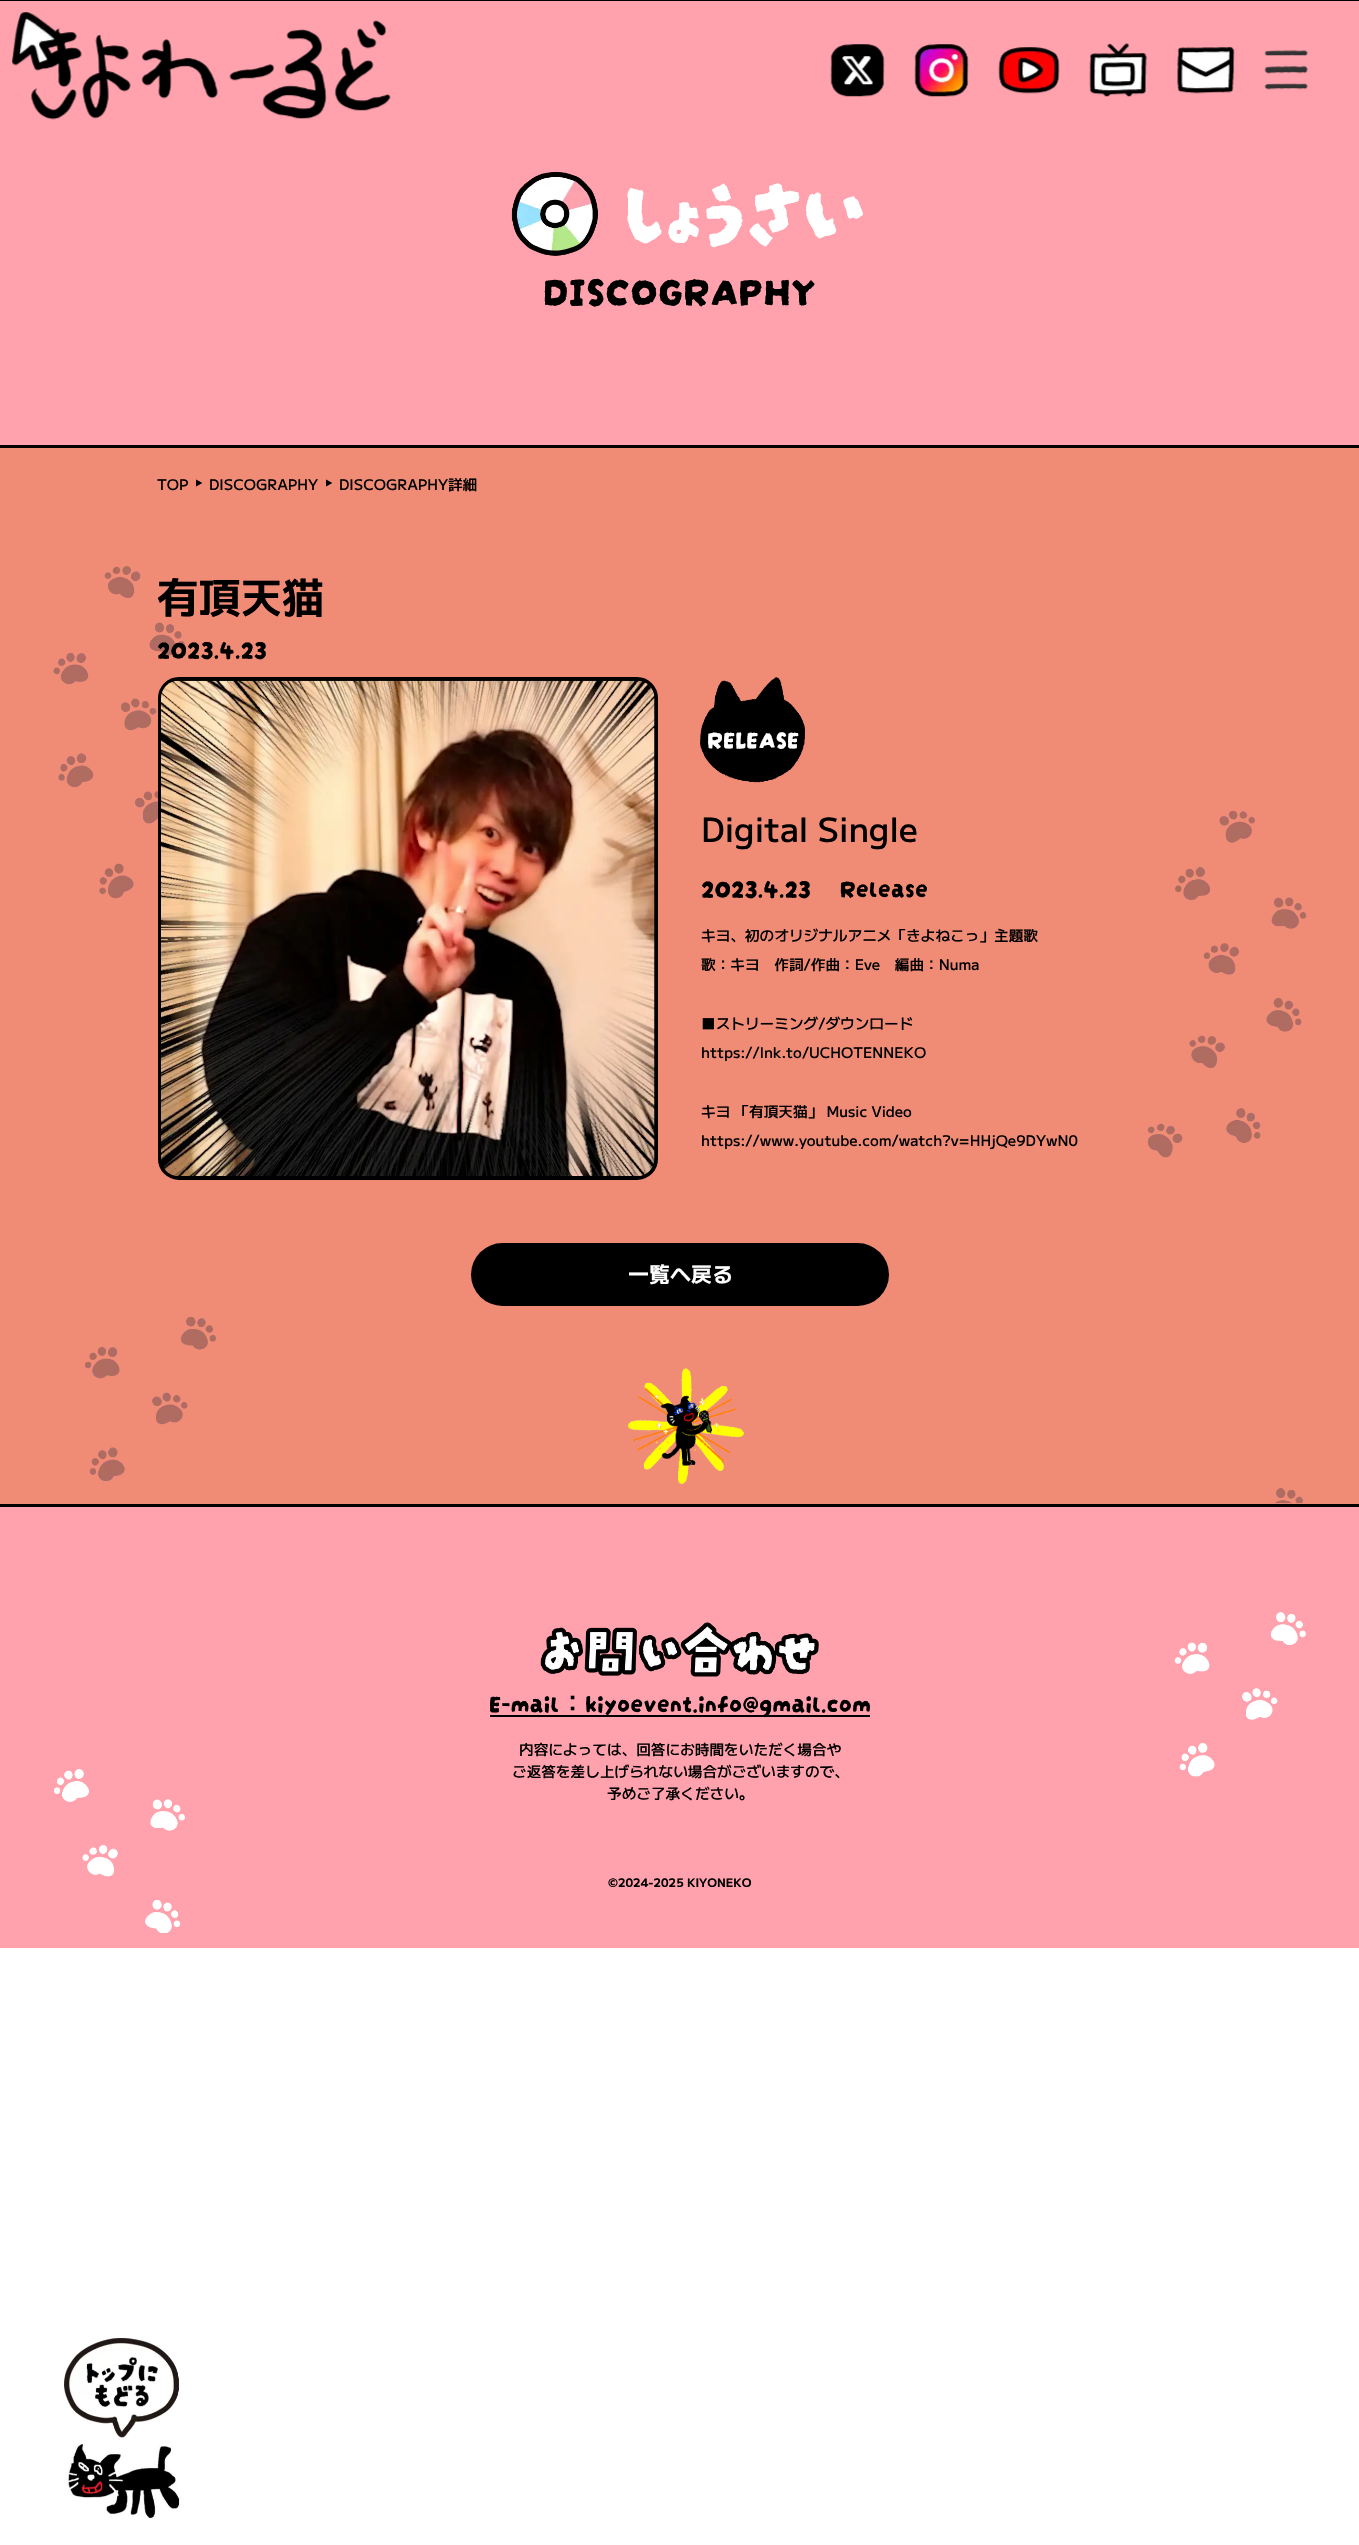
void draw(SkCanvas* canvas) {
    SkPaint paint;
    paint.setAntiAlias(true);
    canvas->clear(0xFFFFFFFF);
    paint.setColor(0xFF000000);
    canvas->drawRect(SkRect::MakeXYWH(0, 0, 1359, 1), paint);
    paint.setColor(0xFFFFA2AD);
    canvas->drawRect(SkRect::MakeXYWH(0, 1, 1359, 444), paint);
    canvas->drawImageRect(SkImages::DeferredFromEncodedData(SkData::MakeFromFileName("img2.png")), SkRect::MakeXYWH(31, 20, 360, 100), SkSamplingOptions());
    canvas->drawImageRect(SkImages::DeferredFromEncodedData(SkData::MakeFromFileName("img1.png")), SkRect::MakeXYWH(12, 12, 54, 59), SkSamplingOptions());
    canvas->drawImageRect(SkImages::DeferredFromEncodedData(SkData::MakeFromFileName("img3.png")), SkRect::MakeXYWH(830, 44, 55, 53), SkSamplingOptions());
    canvas->drawImageRect(SkImages::DeferredFromEncodedData(SkData::MakeFromFileName("img4.png")), SkRect::MakeXYWH(914, 44, 55, 53), SkSamplingOptions());
    canvas->drawImageRect(SkImages::DeferredFromEncodedData(SkData::MakeFromFileName("img5.png")), SkRect::MakeXYWH(998, 47, 62, 47), SkSamplingOptions());
    canvas->drawImageRect(SkImages::DeferredFromEncodedData(SkData::MakeFromFileName("img6.png")), SkRect::MakeXYWH(1089, 43, 58, 54), SkSamplingOptions());
    canvas->drawImageRect(SkImages::DeferredFromEncodedData(SkData::MakeFromFileName("img7.png")), SkRect::MakeXYWH(1177, 47, 58, 47), SkSamplingOptions());
    canvas->drawImageRect(SkImages::DeferredFromEncodedData(SkData::MakeFromFileName("img8.png")), SkRect::MakeXYWH(1264, 50, 44, 6), SkSamplingOptions());
    canvas->drawImageRect(SkImages::DeferredFromEncodedData(SkData::MakeFromFileName("img9.png")), SkRect::MakeXYWH(1264, 66, 44, 8), SkSamplingOptions());
    canvas->drawImageRect(SkImages::DeferredFromEncodedData(SkData::MakeFromFileName("img10.png")), SkRect::MakeXYWH(1264, 83, 44, 7), SkSamplingOptions());
    canvas->drawImageRect(SkImages::DeferredFromEncodedData(SkData::MakeFromFileName("img11.png")), SkRect::MakeXYWH(511, 172, 87, 84), SkSamplingOptions());
    SkFont font1(fontMgr->matchFamilyStyle("Darumadrop One", SkFontStyle::Normal()), 83.5f);
    font1.setSubpixel(true);
    paint.setColor(0xFFFFFFFF);
    canvas->drawString("しょうさい", 624, 241, font1, paint);
    SkFont font2(fontMgr->matchFamilyStyle("Darumadrop One", SkFontStyle::Normal()), 41.75f);
    font2.setSubpixel(true);
    paint.setColor(0xFF000000);
    canvas->drawString("DISCOGRAPHY", 543, 305, font2, paint);
    canvas->drawRect(SkRect::MakeXYWH(0, 445, 1359, 3), paint);
    paint.setColor(0xFFF08B76);
    canvas->drawRect(SkRect::MakeXYWH(0, 448, 1359, 1056), paint);
    canvas->drawImageRect(SkImages::DeferredFromEncodedData(SkData::MakeFromFileName("img12.png")), SkRect::MakeXYWH(53, 566, 1254, 938), SkSamplingOptions());
    SkFont font3(fontMgr->matchFamilyStyle("M PLUS 1", SkFontStyle(500, SkFontStyle::kNormal_Width, SkFontStyle::kUpright_Slant)), 14.65f);
    font3.setSubpixel(true);
    paint.setColor(0xFF000000);
    canvas->drawString("TOP", 157, 490, font3, paint);
    SkFont font4(fontMgr->matchFamilyStyle("M PLUS 1", SkFontStyle(500, SkFontStyle::kNormal_Width, SkFontStyle::kUpright_Slant)), 8);
    font4.setSubpixel(true);
    canvas->save();
    canvas->rotate(90, 196, 479);
    canvas->drawString("▲", 196, 479, font4, paint);
    canvas->restore();
    canvas->drawString("DISCOGRAPHY", 209, 490, font3, paint);
    canvas->save();
    canvas->rotate(90, 326, 479);
    canvas->drawString("▲", 326, 479, font4, paint);
    canvas->restore();
    canvas->drawString("DISCOGRAPHY詳細", 339, 490, font3, paint);
    SkFont font5(fontMgr->matchFamilyStyle("M PLUS 1", SkFontStyle::Bold()), 41.75f);
    font5.setSubpixel(true);
    canvas->drawString("有頂天猫", 157, 613, font5, paint);
    SkFont font6(fontMgr->matchFamilyStyle("Darumadrop One", SkFontStyle::Normal()), 25.1f);
    font6.setSubpixel(true);
    canvas->drawString("2023.4.23", 157, 658, font6, paint);
    paint.setStyle(SkPaint::kStroke_Style);
    paint.setStrokeWidth(4);
    canvas->drawRoundRect(SkRect::MakeXYWH(160, 679, 496, 499), 19, 19, paint);
    canvas->drawImageRect(SkImages::DeferredFromEncodedData(SkData::MakeFromFileName("img13.png")), SkRect::MakeXYWH(161, 680, 494, 496), SkSamplingOptions());
    canvas->drawImageRect(SkImages::DeferredFromEncodedData(SkData::MakeFromFileName("img14.png")), SkRect::MakeXYWH(700, 677, 105, 106), SkSamplingOptions());
    paint.setStyle(SkPaint::kFill_Style);
    paint.setColor(0xFFFFFFFF);
    canvas->drawString("RELEASE", 707, 748, font6, paint);
    SkFont font7(fontMgr->matchFamilyStyle("M PLUS 1", SkFontStyle(500, SkFontStyle::kNormal_Width, SkFontStyle::kUpright_Slant)), 33.5f);
    font7.setSubpixel(true);
    paint.setColor(0xFF000000);
    canvas->drawString("Digital Single", 701, 842, font7, paint);
    canvas->drawString("2023.4.23　Release", 701, 897, font6, paint);
    canvas->drawString("キヨ、初のオリジナルアニメ「きよねこっ」主題歌", 701, 941, font3, paint);
    canvas->drawString("歌：キヨ　作詞/作曲：Eve　編曲：Numa", 701, 970, font3, paint);
    canvas->drawString("■ストリーミング/ダウンロード", 701, 1029, font3, paint);
    canvas->drawString("https://lnk.to/UCHOTENNEKO", 701, 1058, font3, paint);
    canvas->drawString("キヨ 「有頂天猫」 Music Video", 701, 1117, font3, paint);
    canvas->drawString("https://www.youtube.com/watch?v=HHjQe9DYwN0", 701, 1146, font3, paint);
    canvas->drawRoundRect(SkRect::MakeXYWH(471, 1243, 418, 63), 31.5f, 31.5f, paint);
    SkFont font8(fontMgr->matchFamilyStyle("M PLUS 1", SkFontStyle::Bold()), 21);
    font8.setSubpixel(true);
    paint.setColor(0xFFFFFFFF);
    canvas->drawString("一覧へ戻る", 628, 1282, font8, paint);
    canvas->drawImageRect(SkImages::DeferredFromEncodedData(SkData::MakeFromFileName("img15.png")), SkRect::MakeXYWH(627, 1368, 117, 117), SkSamplingOptions());
    paint.setColor(0xFFFFA2AD);
    canvas->drawRect(SkRect::MakeXYWH(0, 1507, 1359, 441), paint);
    paint.setColor(0xFF000000);
    canvas->drawRect(SkRect::MakeXYWH(0, 1504, 1359, 3), paint);
    canvas->drawImageRect(SkImages::DeferredFromEncodedData(SkData::MakeFromFileName("img16.png")), SkRect::MakeXYWH(54, 1612, 1252, 321), SkSamplingOptions());
    canvas->drawImageRect(SkImages::DeferredFromEncodedData(SkData::MakeFromFileName("img17.png")), SkRect::MakeXYWH(540, 1622, 279, 55), SkSamplingOptions());
    canvas->drawString("E-mail", 489, 1712, font6, paint);
    SkFont font9(fontMgr->matchFamilyStyle("M PLUS 1", SkFontStyle(500, SkFontStyle::kNormal_Width, SkFontStyle::kUpright_Slant)), 25.1f);
    font9.setSubpixel(true);
    canvas->drawString("：", 560, 1712, font9, paint);
    canvas->drawRect(SkRect::MakeXYWH(490, 1715, 380, 2), paint);
    canvas->drawString("kiyoevent.info@gmail.com", 585, 1712, font6, paint);
    canvas->drawString("内容によっては、回答にお時間をいただく場合や", 519, 1755, font3, paint);
    canvas->drawString("ご返答を差し上げられない場合がございますので、", 512, 1777, font3, paint);
    canvas->drawString("予めご了承ください。", 607, 1799, font3, paint);
    SkFont font10(fontMgr->matchFamilyStyle("M PLUS 1", SkFontStyle::Bold()), 11.75f);
    font10.setSubpixel(true);
    canvas->drawString("©2024-2025 KIYONEKO", 608, 1887, font10, paint);
    canvas->drawImageRect(SkImages::DeferredFromEncodedData(SkData::MakeFromFileName("img18.png")), SkRect::MakeXYWH(64, 2338, 118, 181), SkSamplingOptions());
}
